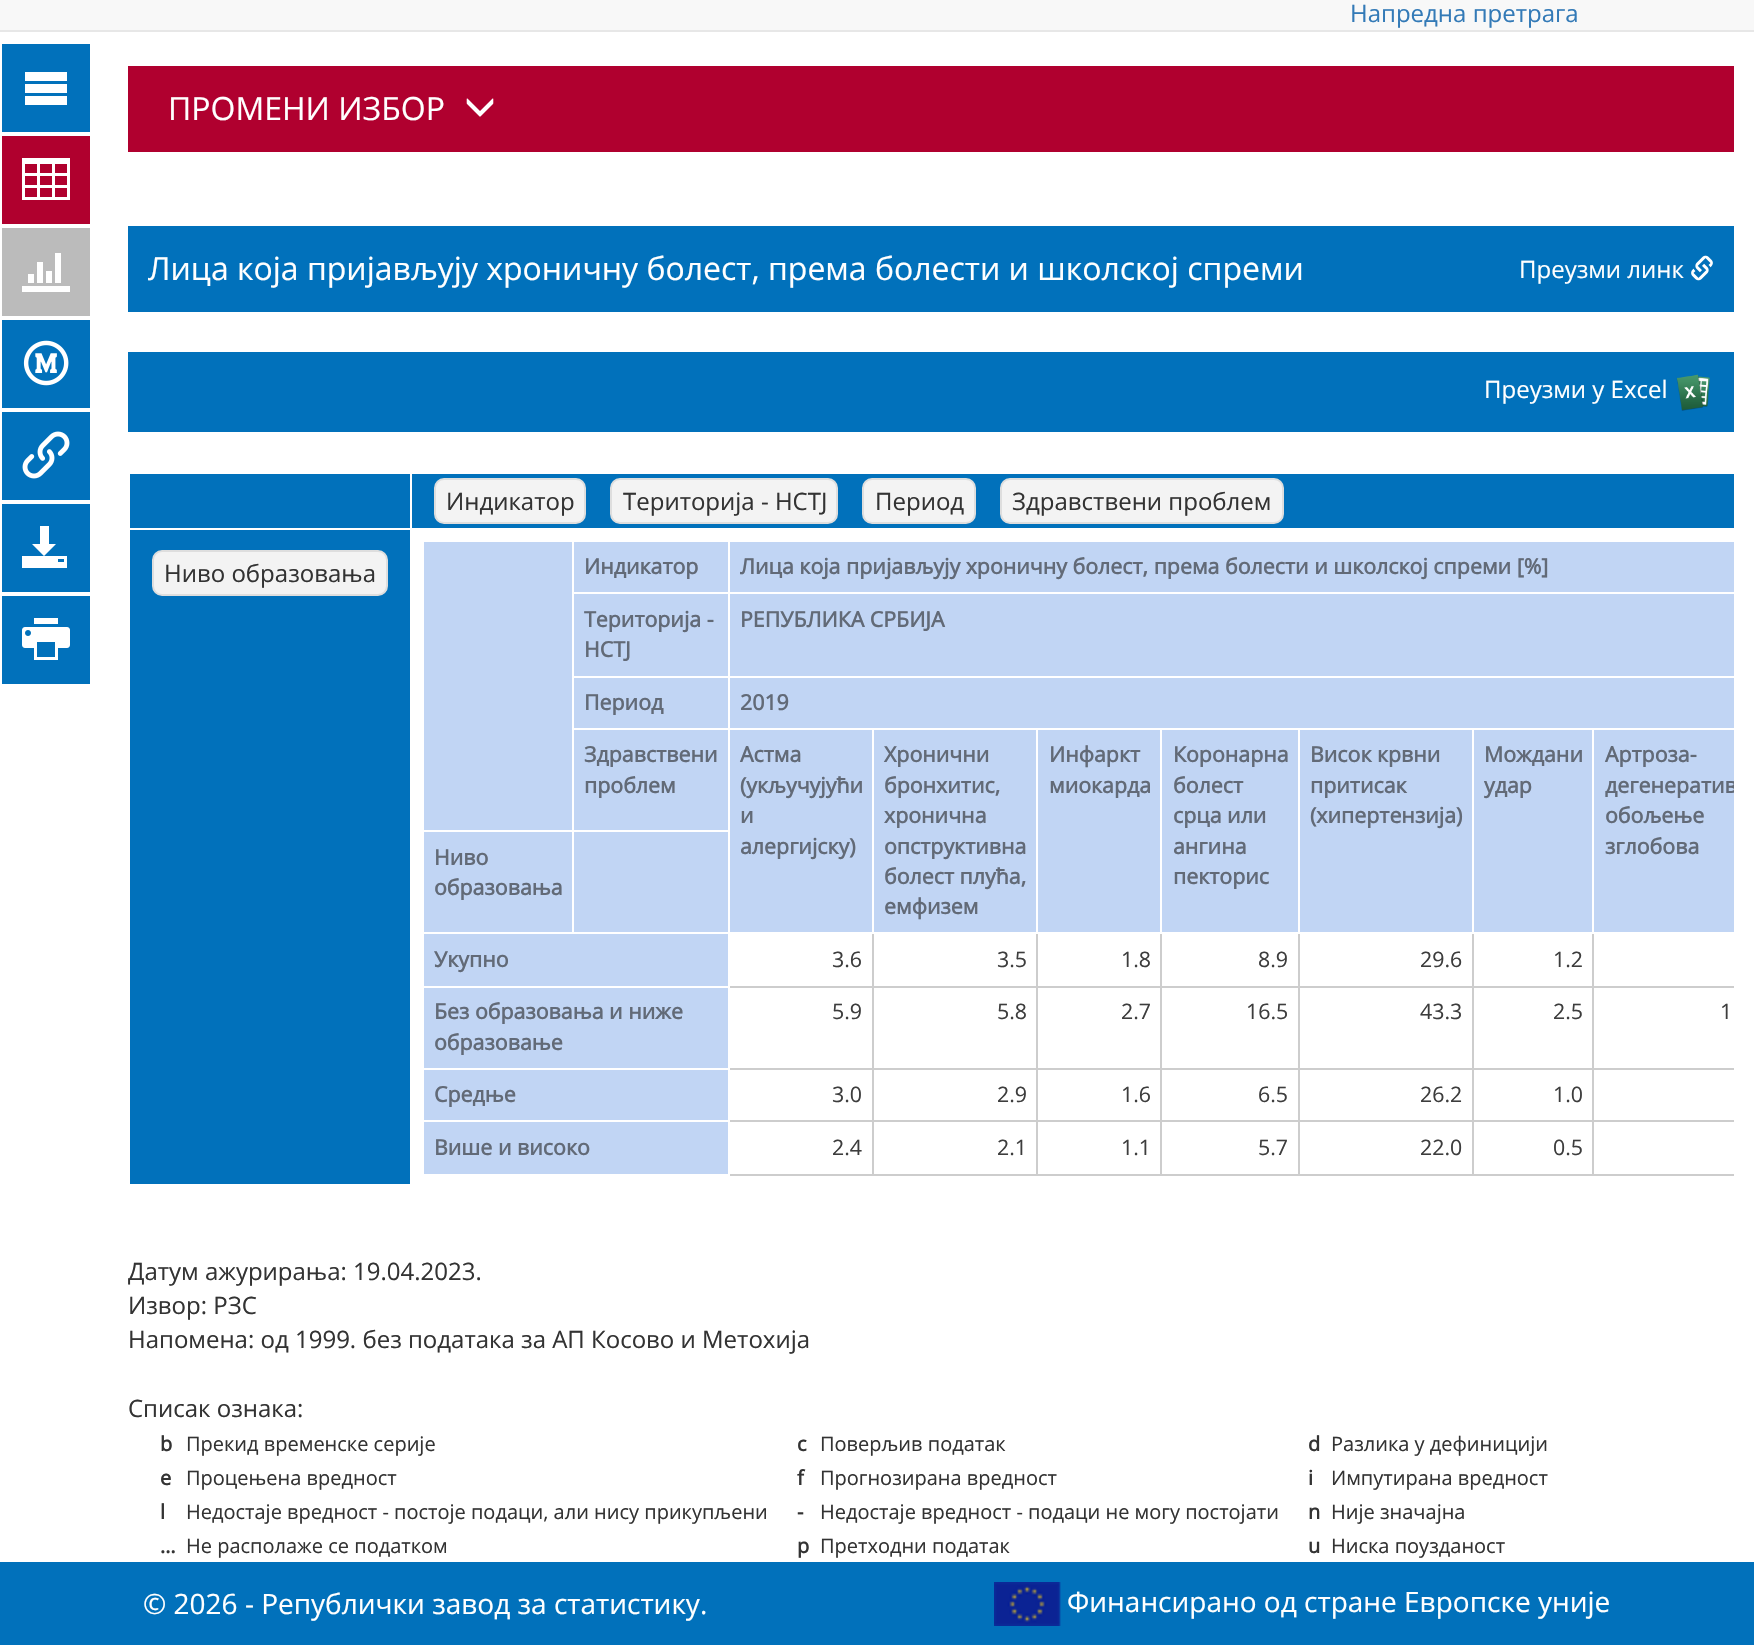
void draw(SkCanvas* canvas) {
    SkPaint paint;
    paint.setAntiAlias(true);
    canvas->clear(0xFFFFFFFF);
    paint.setColor(0xFFF8F8F8);
    canvas->drawRect(SkRect::MakeXYWH(0, 0, 1754, 30), paint);
    paint.setColor(0xFFE7E7E7);
    canvas->drawRect(SkRect::MakeXYWH(0, 30, 1754, 2), paint);
    SkFont font1(fontMgr->matchFamilyStyle("Open Sans", SkFontStyle::Normal()), 24);
    font1.setSubpixel(true);
    paint.setColor(0xFF337AB7);
    canvas->drawString("Напредна претрага", 1350, 22, font1, paint);
    paint.setColor(0xFF0171BB);
    canvas->drawRect(SkRect::MakeXYWH(2, 44, 88, 88), paint);
    paint.setColor(0xFFFFFFFF);
    canvas->drawPath(SkPathBuilder().moveTo(25, 72).lineTo(67, 72).lineTo(67, 81).lineTo(25, 81).close().moveTo(25, 84).lineTo(67, 84).lineTo(67, 93).lineTo(25, 93).close().moveTo(25, 96).lineTo(67, 96).lineTo(67, 105).lineTo(25, 105).close().detach(), paint);
    paint.setColor(0xFFB0002E);
    canvas->drawRect(SkRect::MakeXYWH(2, 136, 88, 88), paint);
    canvas->drawImageRect(SkImages::DeferredFromEncodedData(SkData::MakeFromFileName("img1.png")), SkRect::MakeXYWH(22, 158, 48, 42), SkSamplingOptions());
    paint.setColor(0xFFBBBBBB);
    canvas->drawRect(SkRect::MakeXYWH(2, 228, 88, 88), paint);
    canvas->drawImageRect(SkImages::DeferredFromEncodedData(SkData::MakeFromFileName("img2.png")), SkRect::MakeXYWH(22, 253, 48, 39), SkSamplingOptions());
    paint.setColor(0xFF0171BB);
    canvas->drawRect(SkRect::MakeXYWH(2, 320, 88, 88), paint);
    canvas->drawImageRect(SkImages::DeferredFromEncodedData(SkData::MakeFromFileName("img3.png")), SkRect::MakeXYWH(23, 340, 46, 46), SkSamplingOptions());
    canvas->drawRect(SkRect::MakeXYWH(2, 412, 88, 88), paint);
    canvas->drawImageRect(SkImages::DeferredFromEncodedData(SkData::MakeFromFileName("img4.png")), SkRect::MakeXYWH(22, 431, 48, 48), SkSamplingOptions());
    canvas->drawRect(SkRect::MakeXYWH(2, 504, 88, 88), paint);
    paint.setColor(0xFFFFFFFF);
    canvas->drawPath(SkPathBuilder().moveTo(56, 544).lineTo(44, 556).lineTo(32, 544).lineTo(40, 544).lineTo(40, 526).lineTo(49, 526).lineTo(49, 544).close().moveTo(44, 556).lineTo(22, 556).lineTo(22, 568).lineTo(67, 568).lineTo(67, 556).close().moveTo(64, 562).lineTo(58, 562).lineTo(58, 559).lineTo(64, 559).close().detach(), paint);
    paint.setColor(0xFF0171BB);
    canvas->drawRect(SkRect::MakeXYWH(2, 596, 88, 88), paint);
    canvas->drawImageRect(SkImages::DeferredFromEncodedData(SkData::MakeFromFileName("img5.png")), SkRect::MakeXYWH(22, 618, 48, 42), SkSamplingOptions());
    paint.setColor(0xFFB0002F);
    canvas->drawRect(SkRect::MakeXYWH(128, 66, 1606, 86), paint);
    SkFont font2(fontMgr->matchFamilyStyle("Open Sans", SkFontStyle::Normal()), 32);
    font2.setSubpixel(true);
    paint.setColor(0xFFFFFFFF);
    canvas->drawString("ПРОМЕНИ ИЗБОР", 168, 120, font2, paint);
    canvas->drawImageRect(SkImages::DeferredFromEncodedData(SkData::MakeFromFileName("img6.png")), SkRect::MakeXYWH(466, 98, 28, 19), SkSamplingOptions());
    paint.setColor(0xFF0171BB);
    canvas->drawRect(SkRect::MakeXYWH(128, 226, 1606, 86), paint);
    paint.setColor(0xFFFFFFFF);
    canvas->drawString("Лица која пријављују хроничну болест, према болести и школској спреми", 148, 280, font2, paint);
    canvas->drawString("Преузми линк", 1519, 278, font1, paint);
    canvas->drawImageRect(SkImages::DeferredFromEncodedData(SkData::MakeFromFileName("img7.png")), SkRect::MakeXYWH(1691, 255, 22, 26), SkSamplingOptions());
    paint.setColor(0xFF0171BB);
    canvas->drawRect(SkRect::MakeXYWH(128, 352, 1606, 80), paint);
    paint.setColor(0xFFFFFFFF);
    canvas->drawString("Преузми у Excel", 1484, 398, font1, paint);
    canvas->drawImageRect(SkImages::DeferredFromEncodedData(SkData::MakeFromFileName("img8.png")), SkRect::MakeXYWH(1676, 374, 34, 37), SkSamplingOptions());
    paint.setColor(0xFF0171BB);
    canvas->drawRect(SkRect::MakeXYWH(130, 474, 280, 54), paint);
    canvas->drawRect(SkRect::MakeXYWH(412, 474, 1322, 54), paint);
    paint.setColor(0xFFF3F3F3);
    canvas->drawRoundRect(SkRect::MakeXYWH(435, 479, 150, 44), 9, 9, paint);
    paint.setStyle(SkPaint::kStroke_Style);
    paint.setStrokeWidth(2);
    paint.setColor(0xFFDEDEDE);
    canvas->drawRoundRect(SkRect::MakeXYWH(435, 479, 150, 44), 9, 9, paint);
    paint.setStyle(SkPaint::kFill_Style);
    paint.setColor(0xFF333333);
    canvas->drawString("Индикатор", 446, 510, font1, paint);
    paint.setColor(0xFFF3F3F3);
    canvas->drawRoundRect(SkRect::MakeXYWH(611, 479, 226, 44), 9, 9, paint);
    paint.setStyle(SkPaint::kStroke_Style);
    paint.setColor(0xFFDEDEDE);
    canvas->drawRoundRect(SkRect::MakeXYWH(611, 479, 226, 44), 9, 9, paint);
    paint.setStyle(SkPaint::kFill_Style);
    paint.setColor(0xFF333333);
    canvas->drawString("Територија - НСТЈ", 623, 510, font1, paint);
    paint.setColor(0xFFF3F3F3);
    canvas->drawRoundRect(SkRect::MakeXYWH(863, 479, 112, 44), 9, 9, paint);
    paint.setStyle(SkPaint::kStroke_Style);
    paint.setColor(0xFFDEDEDE);
    canvas->drawRoundRect(SkRect::MakeXYWH(863, 479, 112, 44), 9, 9, paint);
    paint.setStyle(SkPaint::kFill_Style);
    paint.setColor(0xFF333333);
    canvas->drawString("Период", 875, 510, font1, paint);
    paint.setColor(0xFFF3F3F3);
    canvas->drawRoundRect(SkRect::MakeXYWH(1001, 479, 282, 44), 9, 9, paint);
    paint.setStyle(SkPaint::kStroke_Style);
    paint.setColor(0xFFDEDEDE);
    canvas->drawRoundRect(SkRect::MakeXYWH(1001, 479, 282, 44), 9, 9, paint);
    paint.setStyle(SkPaint::kFill_Style);
    paint.setColor(0xFF333333);
    canvas->drawString("Здравствени проблем", 1012, 510, font1, paint);
    paint.setColor(0xFF0171BB);
    canvas->drawRect(SkRect::MakeXYWH(130, 530, 280, 654), paint);
    paint.setColor(0xFFF3F3F3);
    canvas->drawRoundRect(SkRect::MakeXYWH(153, 551, 234, 44), 9, 9, paint);
    paint.setStyle(SkPaint::kStroke_Style);
    paint.setColor(0xFFDEDEDE);
    canvas->drawRoundRect(SkRect::MakeXYWH(153, 551, 234, 44), 9, 9, paint);
    paint.setStyle(SkPaint::kFill_Style);
    paint.setColor(0xFF333333);
    canvas->drawString("Ниво образовања", 164, 582, font1, paint);
    paint.setColor(0xFFC1D5F4);
    canvas->drawRect(SkRect::MakeXYWH(424, 542, 148, 288), paint);
    canvas->drawRect(SkRect::MakeXYWH(574, 542, 154, 50), paint);
    SkFont font3(fontMgr->matchFamilyStyle("Open Sans", SkFontStyle::Bold()), 21.35f);
    font3.setSubpixel(true);
    paint.setColor(0xFF626A77);
    canvas->drawString("Индикатор", 584, 574, font3, paint);
    paint.setColor(0xFFC1D5F4);
    canvas->drawRect(SkRect::MakeXYWH(730, 542, 1004, 50), paint);
    paint.setColor(0xFF626A77);
    canvas->drawString("Лица која пријављују хроничну болест, према болести и школској спреми [%]", 740, 574, font3, paint);
    paint.setColor(0xFFC1D5F4);
    canvas->drawRect(SkRect::MakeXYWH(574, 594, 154, 82), paint);
    paint.setColor(0xFF626A77);
    canvas->drawString("Територија -", 584, 627, font3, paint);
    canvas->drawString("НСТЈ", 584, 657, font3, paint);
    paint.setColor(0xFFC1D5F4);
    canvas->drawRect(SkRect::MakeXYWH(730, 594, 1004, 82), paint);
    paint.setColor(0xFF626A77);
    canvas->drawString("РЕПУБЛИКА СРБИЈА", 740, 627, font3, paint);
    paint.setColor(0xFFC1D5F4);
    canvas->drawRect(SkRect::MakeXYWH(574, 678, 154, 50), paint);
    paint.setColor(0xFF626A77);
    canvas->drawString("Период", 584, 710, font3, paint);
    paint.setColor(0xFFC1D5F4);
    canvas->drawRect(SkRect::MakeXYWH(730, 678, 1004, 50), paint);
    paint.setColor(0xFF626A77);
    canvas->drawString("2019", 740, 710, font3, paint);
    paint.setColor(0xFFC1D5F4);
    canvas->drawRect(SkRect::MakeXYWH(424, 832, 148, 100), paint);
    paint.setColor(0xFF626A77);
    canvas->drawString("Ниво", 434, 865, font3, paint);
    canvas->drawString("образовања", 434, 895, font3, paint);
    paint.setColor(0xFFC1D5F4);
    canvas->drawRect(SkRect::MakeXYWH(574, 832, 154, 100), paint);
    canvas->drawRect(SkRect::MakeXYWH(574, 730, 154, 100), paint);
    paint.setColor(0xFF626A77);
    canvas->drawString("Здравствени", 584, 762, font3, paint);
    canvas->drawString("проблем", 584, 793, font3, paint);
    paint.setColor(0xFFC1D5F4);
    canvas->drawRect(SkRect::MakeXYWH(730, 730, 142, 202), paint);
    paint.setColor(0xFF626A77);
    canvas->drawString("Астма", 740, 762, font3, paint);
    canvas->drawString("(укључујући", 740, 793, font3, paint);
    canvas->drawString("и", 740, 823, font3, paint);
    canvas->drawString("алергијску)", 740, 854, font3, paint);
    paint.setColor(0xFFC1D5F4);
    canvas->drawRect(SkRect::MakeXYWH(874, 730, 162, 202), paint);
    paint.setColor(0xFFCDCDCD);
    canvas->drawRect(SkRect::MakeXYWH(1592, 986, 142, 2), paint);
    canvas->drawRect(SkRect::MakeXYWH(1592, 1068, 142, 2), paint);
    canvas->drawRect(SkRect::MakeXYWH(1592, 1120, 142, 2), paint);
    canvas->drawRect(SkRect::MakeXYWH(1592, 1174, 142, 2), paint);
    canvas->drawRect(SkRect::MakeXYWH(1592, 1120, 2, 56), paint);
    canvas->drawRect(SkRect::MakeXYWH(1472, 1120, 122, 2), paint);
    canvas->drawRect(SkRect::MakeXYWH(1592, 1068, 2, 54), paint);
    canvas->drawRect(SkRect::MakeXYWH(1472, 1068, 122, 2), paint);
    canvas->drawRect(SkRect::MakeXYWH(1592, 986, 2, 84), paint);
    canvas->drawRect(SkRect::MakeXYWH(1472, 986, 122, 2), paint);
    canvas->drawRect(SkRect::MakeXYWH(1472, 1174, 122, 2), paint);
    canvas->drawRect(SkRect::MakeXYWH(1472, 1120, 2, 56), paint);
    canvas->drawRect(SkRect::MakeXYWH(1298, 1120, 176, 2), paint);
    canvas->drawRect(SkRect::MakeXYWH(1472, 1068, 2, 54), paint);
    canvas->drawRect(SkRect::MakeXYWH(1298, 1068, 176, 2), paint);
    canvas->drawRect(SkRect::MakeXYWH(1472, 986, 2, 84), paint);
    canvas->drawRect(SkRect::MakeXYWH(1298, 986, 176, 2), paint);
    canvas->drawRect(SkRect::MakeXYWH(1298, 1174, 176, 2), paint);
    canvas->drawRect(SkRect::MakeXYWH(1298, 1120, 2, 56), paint);
    canvas->drawRect(SkRect::MakeXYWH(1160, 1120, 140, 2), paint);
    canvas->drawRect(SkRect::MakeXYWH(1298, 1068, 2, 54), paint);
    canvas->drawRect(SkRect::MakeXYWH(1160, 1068, 140, 2), paint);
    canvas->drawRect(SkRect::MakeXYWH(1298, 986, 2, 84), paint);
    canvas->drawRect(SkRect::MakeXYWH(1160, 986, 140, 2), paint);
    canvas->drawRect(SkRect::MakeXYWH(1160, 1174, 140, 2), paint);
    canvas->drawRect(SkRect::MakeXYWH(1160, 1120, 2, 56), paint);
    canvas->drawRect(SkRect::MakeXYWH(1036, 1120, 126, 2), paint);
    canvas->drawRect(SkRect::MakeXYWH(1160, 1068, 2, 54), paint);
    canvas->drawRect(SkRect::MakeXYWH(1036, 1068, 126, 2), paint);
    canvas->drawRect(SkRect::MakeXYWH(1160, 986, 2, 84), paint);
    canvas->drawRect(SkRect::MakeXYWH(1036, 986, 126, 2), paint);
    canvas->drawRect(SkRect::MakeXYWH(1036, 1174, 126, 2), paint);
    canvas->drawRect(SkRect::MakeXYWH(1036, 1120, 2, 56), paint);
    canvas->drawRect(SkRect::MakeXYWH(872, 1120, 166, 2), paint);
    canvas->drawRect(SkRect::MakeXYWH(1036, 1068, 2, 54), paint);
    canvas->drawRect(SkRect::MakeXYWH(872, 1068, 166, 2), paint);
    canvas->drawRect(SkRect::MakeXYWH(1036, 986, 2, 84), paint);
    canvas->drawRect(SkRect::MakeXYWH(872, 986, 166, 2), paint);
    canvas->drawRect(SkRect::MakeXYWH(872, 1174, 166, 2), paint);
    canvas->drawRect(SkRect::MakeXYWH(872, 1120, 2, 56), paint);
    canvas->drawRect(SkRect::MakeXYWH(872, 1068, 2, 54), paint);
    canvas->drawRect(SkRect::MakeXYWH(872, 932, 2, 138), paint);
    paint.setColor(0xFFFFFFFF);
    canvas->drawRect(SkRect::MakeXYWH(872, 932, 2, 2), paint);
    paint.setColor(0xFF626A77);
    canvas->drawString("Хронични", 884, 762, font3, paint);
    canvas->drawString("бронхитис,", 884, 793, font3, paint);
    canvas->drawString("хронична", 884, 823, font3, paint);
    canvas->drawString("опструктивна", 884, 854, font3, paint);
    canvas->drawString("болест плућа,", 884, 884, font3, paint);
    canvas->drawString("емфизем", 884, 914, font3, paint);
    paint.setColor(0xFFC1D5F4);
    canvas->drawRect(SkRect::MakeXYWH(1038, 730, 122, 202), paint);
    paint.setColor(0xFFCDCDCD);
    canvas->drawRect(SkRect::MakeXYWH(1036, 932, 2, 56), paint);
    paint.setColor(0xFFFFFFFF);
    canvas->drawRect(SkRect::MakeXYWH(1036, 932, 2, 2), paint);
    paint.setColor(0xFF626A77);
    canvas->drawString("Инфаркт", 1049, 762, font3, paint);
    canvas->drawString("миокарда", 1049, 793, font3, paint);
    paint.setColor(0xFFC1D5F4);
    canvas->drawRect(SkRect::MakeXYWH(1162, 730, 136, 202), paint);
    paint.setColor(0xFFCDCDCD);
    canvas->drawRect(SkRect::MakeXYWH(1160, 932, 2, 56), paint);
    paint.setColor(0xFFFFFFFF);
    canvas->drawRect(SkRect::MakeXYWH(1160, 932, 2, 2), paint);
    paint.setColor(0xFF626A77);
    canvas->drawString("Коронарна", 1173, 762, font3, paint);
    canvas->drawString("болест", 1173, 793, font3, paint);
    canvas->drawString("срца или", 1173, 823, font3, paint);
    canvas->drawString("ангина", 1173, 854, font3, paint);
    canvas->drawString("пекторис", 1173, 884, font3, paint);
    paint.setColor(0xFFC1D5F4);
    canvas->drawRect(SkRect::MakeXYWH(1300, 730, 172, 202), paint);
    paint.setColor(0xFFCDCDCD);
    canvas->drawRect(SkRect::MakeXYWH(1298, 932, 2, 56), paint);
    paint.setColor(0xFFFFFFFF);
    canvas->drawRect(SkRect::MakeXYWH(1298, 932, 2, 2), paint);
    paint.setColor(0xFF626A77);
    canvas->drawString("Висок крвни", 1310, 762, font3, paint);
    canvas->drawString("притисак", 1310, 793, font3, paint);
    canvas->drawString("(хипертензија)", 1310, 823, font3, paint);
    paint.setColor(0xFFC1D5F4);
    canvas->drawRect(SkRect::MakeXYWH(1474, 730, 118, 202), paint);
    paint.setColor(0xFFCDCDCD);
    canvas->drawRect(SkRect::MakeXYWH(1472, 932, 2, 56), paint);
    paint.setColor(0xFFFFFFFF);
    canvas->drawRect(SkRect::MakeXYWH(1472, 932, 2, 2), paint);
    paint.setColor(0xFF626A77);
    canvas->drawString("Мождани", 1484, 762, font3, paint);
    canvas->drawString("удар", 1484, 793, font3, paint);
    paint.setColor(0xFFC1D5F4);
    canvas->drawRect(SkRect::MakeXYWH(1594, 730, 140, 202), paint);
    paint.setColor(0xFFCDCDCD);
    canvas->drawRect(SkRect::MakeXYWH(1592, 932, 2, 56), paint);
    paint.setColor(0xFFFFFFFF);
    canvas->drawRect(SkRect::MakeXYWH(1592, 932, 2, 2), paint);
    paint.setColor(0xFF626A77);
    canvas->drawString("Артроза-", 1605, 762, font3, paint);
    canvas->save();
    canvas->clipRect(SkRect::MakeXYWH(128, 472, 1606, 714));
    canvas->drawString("дегенератив", 1605, 793, font3, paint);
    canvas->restore();
    canvas->drawString("обољење", 1605, 823, font3, paint);
    canvas->drawString("зглобова", 1605, 854, font3, paint);
    paint.setColor(0xFFC1D5F4);
    canvas->drawRect(SkRect::MakeXYWH(424, 934, 304, 52), paint);
    paint.setColor(0xFFCDCDCD);
    canvas->drawRect(SkRect::MakeXYWH(728, 986, 146, 2), paint);
    paint.setColor(0xFFFFFFFF);
    canvas->drawRect(SkRect::MakeXYWH(728, 986, 2, 2), paint);
    paint.setColor(0xFF626A77);
    canvas->drawString("Укупно", 434, 967, font3, paint);
    SkFont font4(fontMgr->matchFamilyStyle("Open Sans", SkFontStyle::Normal()), 21.35f);
    font4.setSubpixel(true);
    paint.setColor(0xFF3D3D3D);
    canvas->drawString("3.6", 832, 967, font4, paint);
    canvas->drawString("3.5", 997, 967, font4, paint);
    canvas->drawString("1.8", 1121, 967, font4, paint);
    canvas->drawString("8.9", 1258, 967, font4, paint);
    canvas->drawString("29.6", 1420, 967, font4, paint);
    canvas->drawString("1.2", 1553, 967, font4, paint);
    paint.setColor(0xFFC1D5F4);
    canvas->drawRect(SkRect::MakeXYWH(424, 988, 304, 80), paint);
    paint.setColor(0xFFCDCDCD);
    canvas->drawRect(SkRect::MakeXYWH(728, 1068, 146, 2), paint);
    paint.setColor(0xFFFFFFFF);
    canvas->drawRect(SkRect::MakeXYWH(728, 1068, 2, 2), paint);
    paint.setColor(0xFF626A77);
    canvas->drawString("Без образовања и ниже", 434, 1019, font3, paint);
    canvas->drawString("образовање", 434, 1050, font3, paint);
    paint.setColor(0xFF3D3D3D);
    canvas->drawString("5.9", 832, 1019, font4, paint);
    canvas->drawString("5.8", 997, 1019, font4, paint);
    canvas->drawString("2.7", 1121, 1019, font4, paint);
    canvas->drawString("16.5", 1246, 1019, font4, paint);
    canvas->drawString("43.3", 1420, 1019, font4, paint);
    canvas->drawString("2.5", 1553, 1019, font4, paint);
    canvas->drawString("1", 1720, 1019, font4, paint);
    paint.setColor(0xFFC1D5F4);
    canvas->drawRect(SkRect::MakeXYWH(424, 1070, 304, 50), paint);
    paint.setColor(0xFFCDCDCD);
    canvas->drawRect(SkRect::MakeXYWH(728, 1120, 146, 2), paint);
    paint.setColor(0xFFFFFFFF);
    canvas->drawRect(SkRect::MakeXYWH(728, 1120, 2, 2), paint);
    paint.setColor(0xFF626A77);
    canvas->drawString("Средње", 434, 1102, font3, paint);
    paint.setColor(0xFF3D3D3D);
    canvas->drawString("3.0", 832, 1102, font4, paint);
    canvas->drawString("2.9", 997, 1102, font4, paint);
    canvas->drawString("1.6", 1121, 1102, font4, paint);
    canvas->drawString("6.5", 1258, 1102, font4, paint);
    canvas->drawString("26.2", 1420, 1102, font4, paint);
    canvas->drawString("1.0", 1553, 1102, font4, paint);
    paint.setColor(0xFFC1D5F4);
    canvas->drawRect(SkRect::MakeXYWH(424, 1122, 304, 52), paint);
    paint.setColor(0xFFCDCDCD);
    canvas->drawRect(SkRect::MakeXYWH(728, 1174, 146, 2), paint);
    paint.setColor(0xFFFFFFFF);
    canvas->drawRect(SkRect::MakeXYWH(728, 1174, 2, 2), paint);
    paint.setColor(0xFF626A77);
    canvas->drawString("Више и високо", 434, 1155, font3, paint);
    paint.setColor(0xFF3D3D3D);
    canvas->drawString("2.4", 832, 1155, font4, paint);
    canvas->drawString("2.1", 997, 1155, font4, paint);
    canvas->drawString("1.1", 1121, 1155, font4, paint);
    canvas->drawString("5.7", 1258, 1155, font4, paint);
    canvas->drawString("22.0", 1420, 1155, font4, paint);
    canvas->drawString("0.5", 1553, 1155, font4, paint);
    paint.setColor(0xFF333333);
    canvas->drawString("Датум ажурирања: 19.04.2023.", 128, 1280, font1, paint);
    canvas->drawString("Извор: РЗС", 128, 1314, font1, paint);
    canvas->drawString("Напомена: од 1999. без података за АП Косово и Метохија", 128, 1348, font1, paint);
    canvas->drawString("Списак ознака:", 128, 1417, font1, paint);
    SkFont font5(fontMgr->matchFamilyStyle("Open Sans", SkFontStyle::Bold()), 20);
    font5.setSubpixel(true);
    canvas->drawString("b", 160, 1451, font5, paint);
    SkFont font6(fontMgr->matchFamilyStyle("Open Sans", SkFontStyle::Normal()), 20);
    font6.setSubpixel(true);
    canvas->drawString("Прекид временске серије", 186, 1451, font6, paint);
    canvas->drawString("c", 797, 1451, font5, paint);
    canvas->drawString("Поверљив податак", 820, 1451, font6, paint);
    canvas->drawString("d", 1308, 1451, font5, paint);
    canvas->drawString("Разлика у дефиницији", 1331, 1451, font6, paint);
    canvas->drawString("e", 160, 1485, font5, paint);
    canvas->drawString("Процењена вредност", 186, 1485, font6, paint);
    canvas->drawString("f", 797, 1485, font5, paint);
    canvas->drawString("Прогнозирана вредност", 820, 1485, font6, paint);
    canvas->drawString("i", 1308, 1485, font5, paint);
    canvas->drawString("Импутирана вредност", 1331, 1485, font6, paint);
    canvas->drawString("l", 160, 1519, font5, paint);
    canvas->drawString("Недостаје вредност - постоје подаци, али нису прикупљени", 186, 1519, font6, paint);
    canvas->drawString("-", 797, 1519, font5, paint);
    canvas->drawString("Недостаје вредност - подаци не могу постојати", 820, 1519, font6, paint);
    canvas->drawString("n", 1308, 1519, font5, paint);
    canvas->drawString("Није значајна", 1331, 1519, font6, paint);
    canvas->drawString("…", 160, 1553, font5, paint);
    canvas->drawString("Не располаже се податком", 186, 1553, font6, paint);
    canvas->drawString("p", 797, 1553, font5, paint);
    canvas->drawString("Претходни податак", 820, 1553, font6, paint);
    canvas->drawString("u", 1308, 1553, font5, paint);
    canvas->drawString("Ниска поузданост", 1331, 1553, font6, paint);
    paint.setColor(0xFF0171BB);
    canvas->drawRect(SkRect::MakeXYWH(0, 1562, 1754, 83), paint);
    SkFont font7(fontMgr->matchFamilyStyle("Open Sans", SkFontStyle::Normal()), 28);
    font7.setSubpixel(true);
    paint.setColor(0xFFFFFFFF);
    canvas->drawString("© 2026 - Републички завод за статистику.", 143, 1614, font7, paint);
    canvas->drawImageRect(SkImages::DeferredFromEncodedData(SkData::MakeFromFileName("img9.png")), SkRect::MakeXYWH(994, 1582, 67, 44), SkSamplingOptions());
    canvas->drawString("Финансирано од стране Европске уније", 1067, 1612, font7, paint);
}
